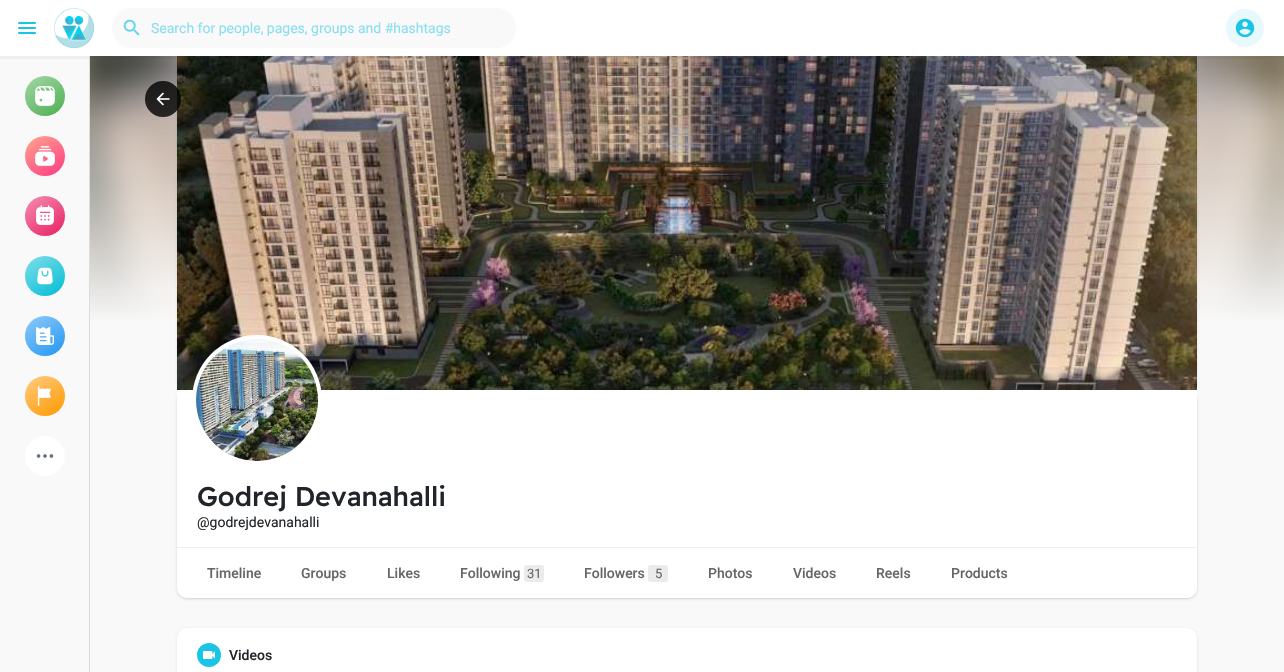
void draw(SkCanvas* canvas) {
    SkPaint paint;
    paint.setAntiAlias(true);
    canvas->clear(0xFFF9F9F9);
    canvas->drawImageRect(SkImages::DeferredFromEncodedData(SkData::MakeFromFileName("img13.png")), SkRect::MakeXYWH(90, 56, 1194, 265), SkSamplingOptions());
    {
        const SkColor colors[] = {0x1AFFFFFF, 0xFFF9F9F9, 0xFFF9F9F9};
        const float stops[] = {0, 0.8f, 1};
        const SkPoint ends[] = {{687, 56}, {687, 390}};
        paint.setShader(SkGradientShader::MakeLinear(ends, colors, stops, 3, SkTileMode::kClamp));
        paint.setAlpha(255);
    }
    canvas->drawRect(SkRect::MakeXYWH(90, 56, 1194, 265), paint);
    paint.setShader(nullptr);
    paint.setColor(0x1A000000);
    paint.setMaskFilter(SkMaskFilter::MakeBlur(kNormal_SkBlurStyle, 1.5f));
    canvas->drawRoundRect(SkRect::MakeXYWH(177, 57, 1020, 334), 10, 10, paint);
    paint.setMaskFilter(nullptr);
    paint.setColor(0xFFFFFFFF);
    canvas->drawRect(SkRect::MakeXYWH(0, 0, 1284, 56), paint);
    canvas->drawImageRect(SkImages::DeferredFromEncodedData(SkData::MakeFromFileName("img1.png")), SkRect::MakeXYWH(18, 22, 18, 12), SkSamplingOptions());
    canvas->drawImageRect(SkImages::DeferredFromEncodedData(SkData::MakeFromFileName("img2.png")), SkRect::MakeXYWH(54, 8, 40, 40), SkSamplingOptions());
    paint.setColor(0xFFF9F9F9);
    canvas->drawRoundRect(SkRect::MakeXYWH(112, 8, 404, 40), 20, 20, paint);
    canvas->drawImageRect(SkImages::DeferredFromEncodedData(SkData::MakeFromFileName("img3.png")), SkRect::MakeXYWH(123, 19, 17, 17), SkSamplingOptions());
    SkFont font1(fontMgr->matchFamilyStyle("Roboto", SkFontStyle::Normal()), 14);
    font1.setSubpixel(true);
    paint.setColor(0xFF89DFF0);
    canvas->drawString("Search for people, pages, groups and #hashtags", 151, 33, font1, paint);
    paint.setColor(0xFFDCDCDC);
    canvas->drawRect(SkRect::MakeXYWH(89, 56, 1, 616), paint);
    canvas->drawImageRect(SkImages::DeferredFromEncodedData(SkData::MakeFromFileName("img12.png")), SkRect::MakeXYWH(177, 56, 1020, 334), SkSamplingOptions());
    paint.setColor(0x0A000000);
    canvas->drawRect(SkRect::MakeXYWH(0, 56, 1284, 3), paint);
    paint.setColor(0xFFE8F9FD);
    canvas->drawCircle(1245, 28, 19, paint);
    canvas->drawImageRect(SkImages::DeferredFromEncodedData(SkData::MakeFromFileName("img4.png")), SkRect::MakeXYWH(1235, 18, 20, 20), SkSamplingOptions());
    {
        const SkColor colors[] = {0xFFA5D6A7, 0xFF4CAF50};
        const float stops[] = {0, 1};
        const SkPoint ends[] = {{29, 73}, {61, 119}};
        paint.setShader(SkGradientShader::MakeLinear(ends, colors, stops, 2, SkTileMode::kClamp));
        paint.setAlpha(255);
    }
    canvas->drawCircle(45, 96, 20, paint);
    canvas->drawImageRect(SkImages::DeferredFromEncodedData(SkData::MakeFromFileName("img5.png")), SkRect::MakeXYWH(35, 86, 20, 20), SkSamplingOptions());
    {
        const SkColor colors[] = {0xFFFFA68D, 0xFFFD3A84};
        const float stops[] = {0, 1};
        const SkPoint ends[] = {{29, 133}, {61, 179}};
        paint.setShader(SkGradientShader::MakeLinear(ends, colors, stops, 2, SkTileMode::kClamp));
        paint.setAlpha(255);
    }
    canvas->drawCircle(45, 156, 20, paint);
    canvas->drawImageRect(SkImages::DeferredFromEncodedData(SkData::MakeFromFileName("img6.png")), SkRect::MakeXYWH(35, 146, 20, 20), SkSamplingOptions());
    {
        const SkColor colors[] = {0xFFF48FB1, 0xFFE91E63};
        const float stops[] = {0, 1};
        const SkPoint ends[] = {{29, 193}, {61, 239}};
        paint.setShader(SkGradientShader::MakeLinear(ends, colors, stops, 2, SkTileMode::kClamp));
        paint.setAlpha(255);
    }
    canvas->drawCircle(45, 216, 20, paint);
    canvas->drawImageRect(SkImages::DeferredFromEncodedData(SkData::MakeFromFileName("img7.png")), SkRect::MakeXYWH(36, 205, 18, 20), SkSamplingOptions());
    {
        const SkColor colors[] = {0xFF80DEEA, 0xFF00BCD4};
        const float stops[] = {0, 1};
        const SkPoint ends[] = {{29, 253}, {61, 299}};
        paint.setShader(SkGradientShader::MakeLinear(ends, colors, stops, 2, SkTileMode::kClamp));
        paint.setAlpha(255);
    }
    canvas->drawCircle(45, 276, 20, paint);
    canvas->drawImageRect(SkImages::DeferredFromEncodedData(SkData::MakeFromFileName("img8.png")), SkRect::MakeXYWH(37, 267, 16, 18), SkSamplingOptions());
    {
        const SkColor colors[] = {0xFF90CAF9, 0xFF2196F3};
        const float stops[] = {0, 1};
        const SkPoint ends[] = {{29, 313}, {61, 359}};
        paint.setShader(SkGradientShader::MakeLinear(ends, colors, stops, 2, SkTileMode::kClamp));
        paint.setAlpha(255);
    }
    canvas->drawCircle(45, 336, 20, paint);
    canvas->drawImageRect(SkImages::DeferredFromEncodedData(SkData::MakeFromFileName("img9.png")), SkRect::MakeXYWH(36, 327, 18, 18), SkSamplingOptions());
    {
        const SkColor colors[] = {0xFFFFCC80, 0xFFFF9800};
        const float stops[] = {0, 1};
        const SkPoint ends[] = {{29, 373}, {61, 419}};
        paint.setShader(SkGradientShader::MakeLinear(ends, colors, stops, 2, SkTileMode::kClamp));
        paint.setAlpha(255);
    }
    canvas->drawCircle(45, 396, 20, paint);
    canvas->drawImageRect(SkImages::DeferredFromEncodedData(SkData::MakeFromFileName("img10.png")), SkRect::MakeXYWH(37, 386, 14, 20), SkSamplingOptions());
    paint.setShader(nullptr);
    paint.setColor(0xFFFFFFFF);
    canvas->drawCircle(45, 456, 20, paint);
    canvas->drawImageRect(SkImages::DeferredFromEncodedData(SkData::MakeFromFileName("img11.png")), SkRect::MakeXYWH(36, 454, 18, 4), SkSamplingOptions());
    paint.setColor(0xCC000000);
    canvas->drawCircle(163, 99, 18, paint);
    canvas->drawImageRect(SkImages::DeferredFromEncodedData(SkData::MakeFromFileName("img14.png")), SkRect::MakeXYWH(156, 92, 14, 14), SkSamplingOptions());
    paint.setColor(0x0F000000);
    paint.setMaskFilter(SkMaskFilter::MakeBlur(kNormal_SkBlurStyle, 1));
    canvas->drawRoundRect(SkRect::MakeXYWH(177, 391, 1020, 208), 10, 10, paint);
    paint.setMaskFilter(nullptr);
    paint.setColor(0x1A000000);
    paint.setMaskFilter(SkMaskFilter::MakeBlur(kNormal_SkBlurStyle, 1.5f));
    canvas->drawRoundRect(SkRect::MakeXYWH(177, 391, 1020, 208), 10, 10, paint);
    paint.setMaskFilter(nullptr);
    paint.setColor(0xFFFFFFFF);
    canvas->drawPath(SkPathBuilder().moveTo(177, 390).lineTo(1197, 390).lineTo(1197, 588).cubicTo(1197, 593.5f, 1192.5f, 598, 1187, 598).lineTo(187, 598).cubicTo(181.5f, 598, 177, 593.5f, 177, 588).close().detach(), paint);
    canvas->drawCircle(257, 400, 65, paint);
    canvas->drawImageRect(SkImages::DeferredFromEncodedData(SkData::MakeFromFileName("img15.png")), SkRect::MakeXYWH(196, 339, 122, 122), SkSamplingOptions());
    SkFont font2(fontMgr->matchFamilyStyle("Readex Pro", SkFontStyle(500, SkFontStyle::kNormal_Width, SkFontStyle::kUpright_Slant)), 27);
    font2.setSubpixel(true);
    paint.setColor(0xFF212529);
    canvas->drawString("Godrej Devanahalli", 197, 506, font2, paint);
    canvas->drawString("@godrejdevanahalli", 197, 527, font1, paint);
    paint.setColor(0xFFEEEEEE);
    canvas->drawRect(SkRect::MakeXYWH(177, 547, 1020, 1), paint);
    SkFont font3(fontMgr->matchFamilyStyle("Roboto", SkFontStyle(500, SkFontStyle::kNormal_Width, SkFontStyle::kUpright_Slant)), 14);
    font3.setSubpixel(true);
    paint.setColor(0xFF666666);
    canvas->drawString("Timeline", 207, 578, font3, paint);
    canvas->drawString("Groups", 301, 578, font3, paint);
    canvas->drawString("Likes", 387, 578, font3, paint);
    canvas->drawString("Following", 460, 578, font3, paint);
    paint.setColor(0xFFEBEBEB);
    canvas->drawRoundRect(SkRect::MakeXYWH(524, 565, 20, 17), 3, 3, paint);
    SkFont font4(fontMgr->matchFamilyStyle("Roboto", SkFontStyle::Normal()), 13);
    font4.setSubpixel(true);
    paint.setColor(0xFF666666);
    canvas->drawString("31", 527, 578, font4, paint);
    canvas->drawString("Followers", 584, 578, font3, paint);
    paint.setColor(0xFFEBEBEB);
    canvas->drawRoundRect(SkRect::MakeXYWH(648, 565, 20, 17), 3, 3, paint);
    paint.setColor(0xFF666666);
    canvas->drawString("5", 655, 578, font4, paint);
    canvas->drawString("Photos", 708, 578, font3, paint);
    canvas->drawString("Videos", 793, 578, font3, paint);
    canvas->drawString("Reels", 876, 578, font3, paint);
    canvas->drawString("Products", 951, 578, font3, paint);
    paint.setColor(0x1A000000);
    paint.setMaskFilter(SkMaskFilter::MakeBlur(kNormal_SkBlurStyle, 1.5f));
    canvas->drawRoundRect(SkRect::MakeXYWH(177, 629, 1020, 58), 10, 10, paint);
    paint.setMaskFilter(nullptr);
    paint.setColor(0xFFFFFFFF);
    canvas->drawRoundRect(SkRect::MakeXYWH(177, 628, 1020, 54), 10, 10, paint);
    paint.setColor(0xFF19C4E6);
    canvas->drawCircle(209, 655, 12, paint);
    canvas->drawImageRect(SkImages::DeferredFromEncodedData(SkData::MakeFromFileName("img16.png")), SkRect::MakeXYWH(203, 651, 12, 8), SkSamplingOptions());
    paint.setColor(0xFF212529);
    canvas->drawString("Videos", 229, 660, font3, paint);
}
